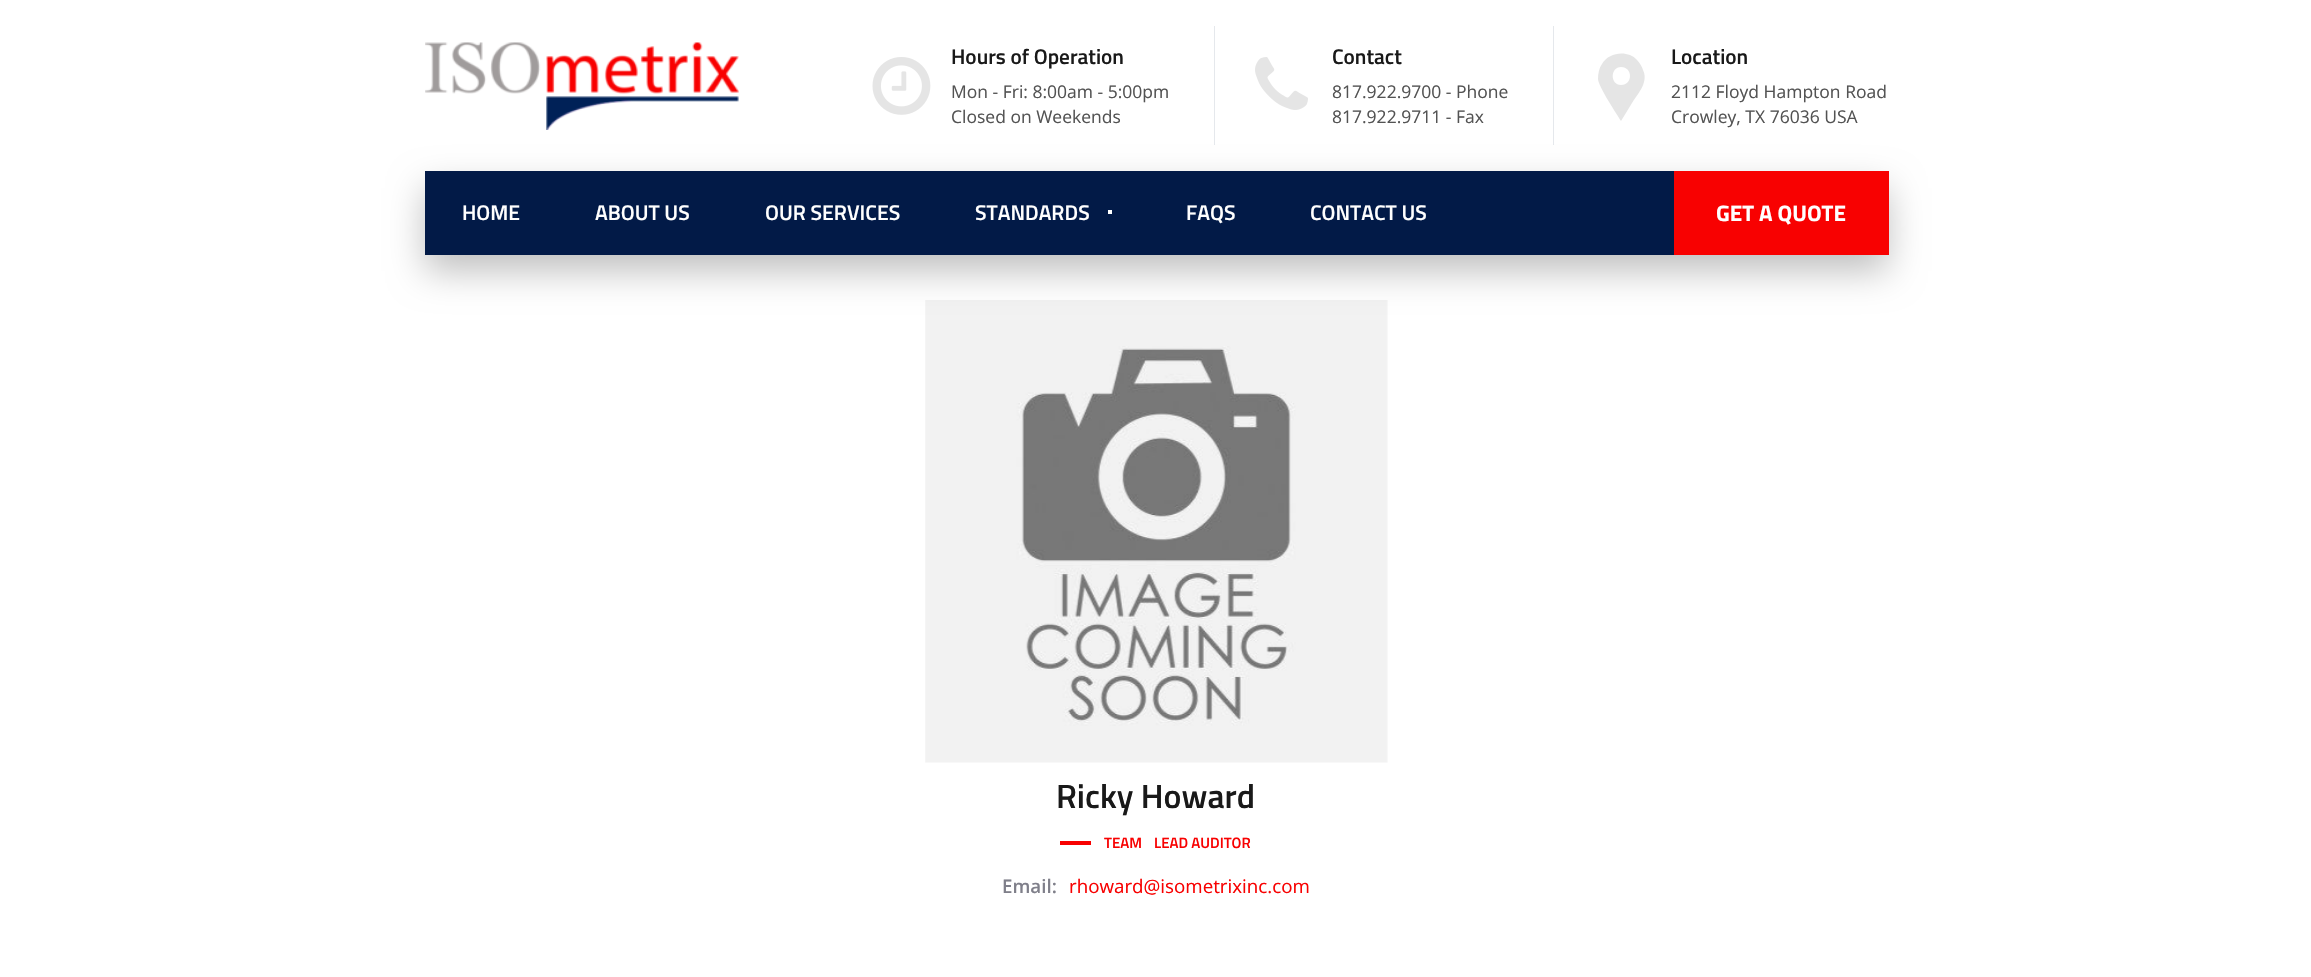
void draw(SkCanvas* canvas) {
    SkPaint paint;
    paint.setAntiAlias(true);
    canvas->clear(0xFFFFFFFF);
    canvas->drawImageRect(SkImages::DeferredFromEncodedData(SkData::MakeFromFileName("img1.png")), SkRect::MakeXYWH(425, 42, 314, 88), SkSamplingOptions());
    canvas->drawImageRect(SkImages::DeferredFromEncodedData(SkData::MakeFromFileName("img2.png")), SkRect::MakeXYWH(872, 57, 59, 58), SkSamplingOptions());
    SkFont font1(fontMgr->matchFamilyStyle("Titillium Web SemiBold", SkFontStyle(600, SkFontStyle::kNormal_Width, SkFontStyle::kUpright_Slant)), 21.25f);
    font1.setSubpixel(true);
    paint.setColor(0xFF191919);
    canvas->drawString("Hours of Operation", 951, 64, font1, paint);
    SkFont font2(fontMgr->matchFamilyStyle("Open Sans", SkFontStyle::Normal()), 17.5f);
    font2.setSubpixel(true);
    paint.setColor(0xFF535353);
    canvas->drawString("Mon - Fri: 8:00am - 5:00pm", 951, 98, font2, paint);
    canvas->drawString("Closed on Weekends", 951, 123, font2, paint);
    paint.setColor(0xFFE5E8EC);
    canvas->drawRect(SkRect::MakeXYWH(1214, 26, 1, 119), paint);
    canvas->drawImageRect(SkImages::DeferredFromEncodedData(SkData::MakeFromFileName("img3.png")), SkRect::MakeXYWH(1255, 57, 53, 53), SkSamplingOptions());
    paint.setColor(0xFF191919);
    canvas->drawString("Contact", 1332, 64, font1, paint);
    paint.setColor(0xFF535353);
    canvas->drawString("817.922.9700 - Phone", 1332, 98, font2, paint);
    canvas->drawString("817.922.9711 - Fax", 1332, 123, font2, paint);
    paint.setColor(0xFFE5E8EC);
    canvas->drawRect(SkRect::MakeXYWH(1553, 26, 1, 119), paint);
    paint.setColor(0xFFE5E5E5);
    canvas->drawPath(SkPathBuilder().moveTo(1643, 70).cubicTo(1642, 67, 1640, 63, 1637, 60).cubicTo(1628, 50, 1609, 52, 1602, 64).cubicTo(1599, 68, 1598, 74, 1598, 79).cubicTo(1598, 86, 1618, 116, 1621, 121).lineTo(1632, 103).cubicTo(1636, 96, 1642, 90, 1644, 82).cubicTo(1645, 78, 1645, 74, 1643, 70).close().moveTo(1621, 85).cubicTo(1610, 85, 1610, 67, 1621, 67).cubicTo(1633, 67, 1633, 85, 1621, 85).close().detach(), paint);
    paint.setColor(0xFF191919);
    canvas->drawString("Location", 1671, 64, font1, paint);
    paint.setColor(0xFF535353);
    canvas->drawString("2112 Floyd Hampton Road", 1671, 98, font2, paint);
    canvas->drawString("Crowley, TX 76036 USA", 1671, 123, font2, paint);
    canvas->drawImageRect(SkImages::DeferredFromEncodedData(SkData::MakeFromFileName("img4.png")), SkRect::MakeXYWH(925, 300, 463, 463), SkSamplingOptions());
    paint.setColor(0x40000000);
    paint.setMaskFilter(SkMaskFilter::MakeBlur(kNormal_SkBlurStyle, 18));
    canvas->drawRect(SkRect::MakeXYWH(425, 188, 1463, 83), paint);
    paint.setMaskFilter(nullptr);
    paint.setColor(0xFF021A47);
    canvas->drawRect(SkRect::MakeXYWH(425, 171, 1249, 84), paint);
    paint.setColor(0xFFFFFFFF);
    canvas->drawString("HOME", 462, 220, font1, paint);
    canvas->drawString("ABOUT US", 595, 220, font1, paint);
    canvas->drawString("OUR SERVICES", 765, 220, font1, paint);
    canvas->drawString("STANDARDS", 975, 220, font1, paint);
    canvas->drawRect(SkRect::MakeXYWH(1108, 210, 4, 4), paint);
    canvas->drawString("FAQS", 1186, 220, font1, paint);
    canvas->drawString("CONTACT US", 1310, 220, font1, paint);
    paint.setColor(0xFFF80101);
    canvas->drawRect(SkRect::MakeXYWH(1674, 171, 215, 84), paint);
    SkFont font3(fontMgr->matchFamilyStyle("Titillium Web", SkFontStyle::Bold()), 22.5f);
    font3.setSubpixel(true);
    paint.setColor(0xFFFFFFFF);
    canvas->drawString("GET A QUOTE", 1716, 221, font3, paint);
    SkFont font4(fontMgr->matchFamilyStyle("Titillium Web SemiBold", SkFontStyle(600, SkFontStyle::kNormal_Width, SkFontStyle::kUpright_Slant)), 33.75f);
    font4.setSubpixel(true);
    paint.setColor(0xFF191919);
    canvas->drawString("Ricky Howard", 1056, 808, font4, paint);
    paint.setColor(0xFFF80101);
    canvas->drawRect(SkRect::MakeXYWH(1060, 841, 31, 4), paint);
    SkFont font5(fontMgr->matchFamilyStyle("Titillium Web SemiBold", SkFontStyle(600, SkFontStyle::kNormal_Width, SkFontStyle::kUpright_Slant)), 15);
    font5.setSubpixel(true);
    canvas->drawString("TEAM", 1104, 848, font5, paint);
    canvas->drawString("LEAD AUDITOR", 1154, 848, font5, paint);
    SkFont font6(fontMgr->matchFamilyStyle("Open Sans", SkFontStyle(600, SkFontStyle::kNormal_Width, SkFontStyle::kUpright_Slant)), 18.75f);
    font6.setSubpixel(true);
    paint.setColor(0xFF7F7F8A);
    canvas->drawString("Email:", 1002, 893, font6, paint);
    SkFont font7(fontMgr->matchFamilyStyle("Open Sans", SkFontStyle::Normal()), 18.75f);
    font7.setSubpixel(true);
    paint.setColor(0xFFF80101);
    canvas->drawString("rhoward@isometrixinc.com", 1069, 893, font7, paint);
}
